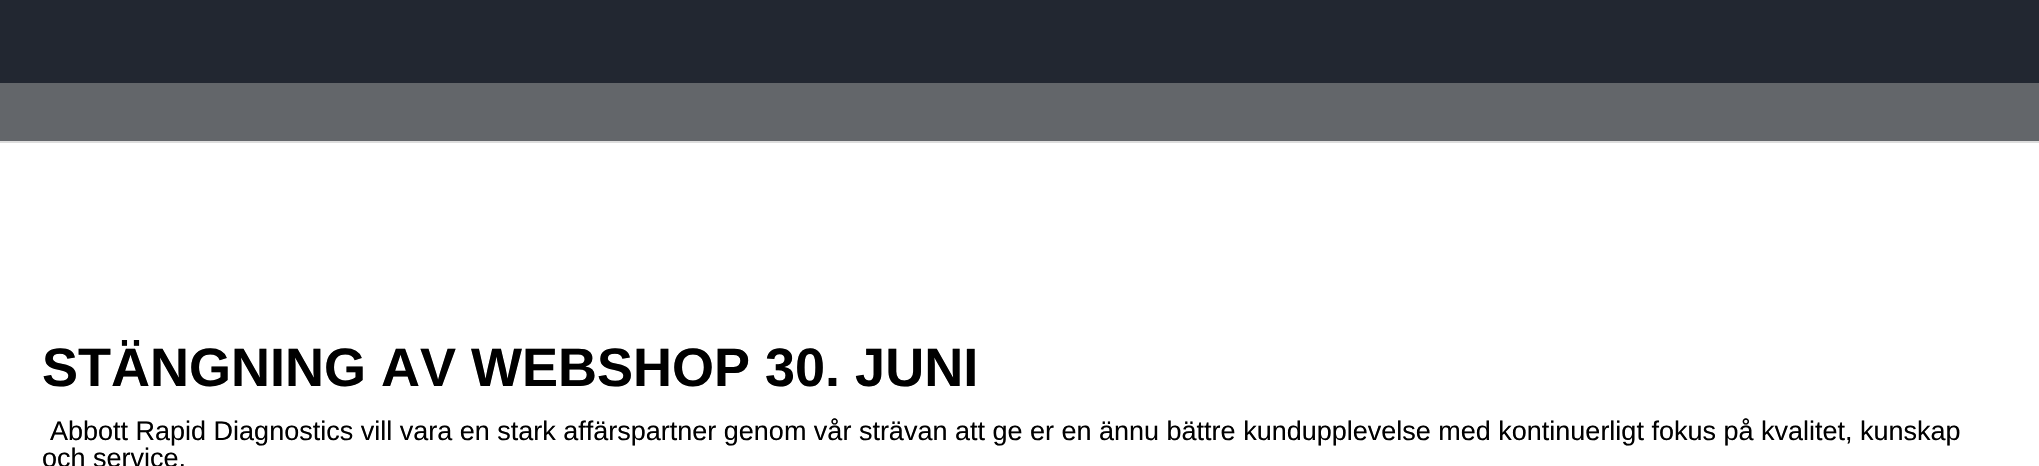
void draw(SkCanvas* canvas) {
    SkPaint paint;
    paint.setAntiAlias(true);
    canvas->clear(0xFFFFFFFF);
    paint.setColor(0xFF63666A);
    canvas->drawRect(SkRect::MakeXYWH(0, 83, 2039, 58), paint);
    paint.setColor(0xFFDDDDDD);
    canvas->drawRect(SkRect::MakeXYWH(0, 141, 2039, 2), paint);
    paint.setColor(0xFF222731);
    canvas->drawRect(SkRect::MakeXYWH(0, 0, 2039, 83), paint);
    SkFont font1(fontMgr->matchFamilyStyle("Liberation Sans", SkFontStyle::Bold()), 54);
    font1.setSubpixel(true);
    paint.setColor(0xFF000000);
    canvas->drawString("STÄNGNING AV WEBSHOP 30. JUNI", 42, 386, font1, paint);
    SkFont font2(fontMgr->matchFamilyStyle("Liberation Sans", SkFontStyle::Normal()), 27);
    font2.setSubpixel(true);
    canvas->drawString("Abbott Rapid Diagnostics vill vara en stark affärspartner genom vår strävan att ge er en ännu bättre kundupplevelse med kontinuerligt fokus på kvalitet, kunskap", 50, 440, font2, paint);
    canvas->drawString("och service.", 42, 467, font2, paint);
}
